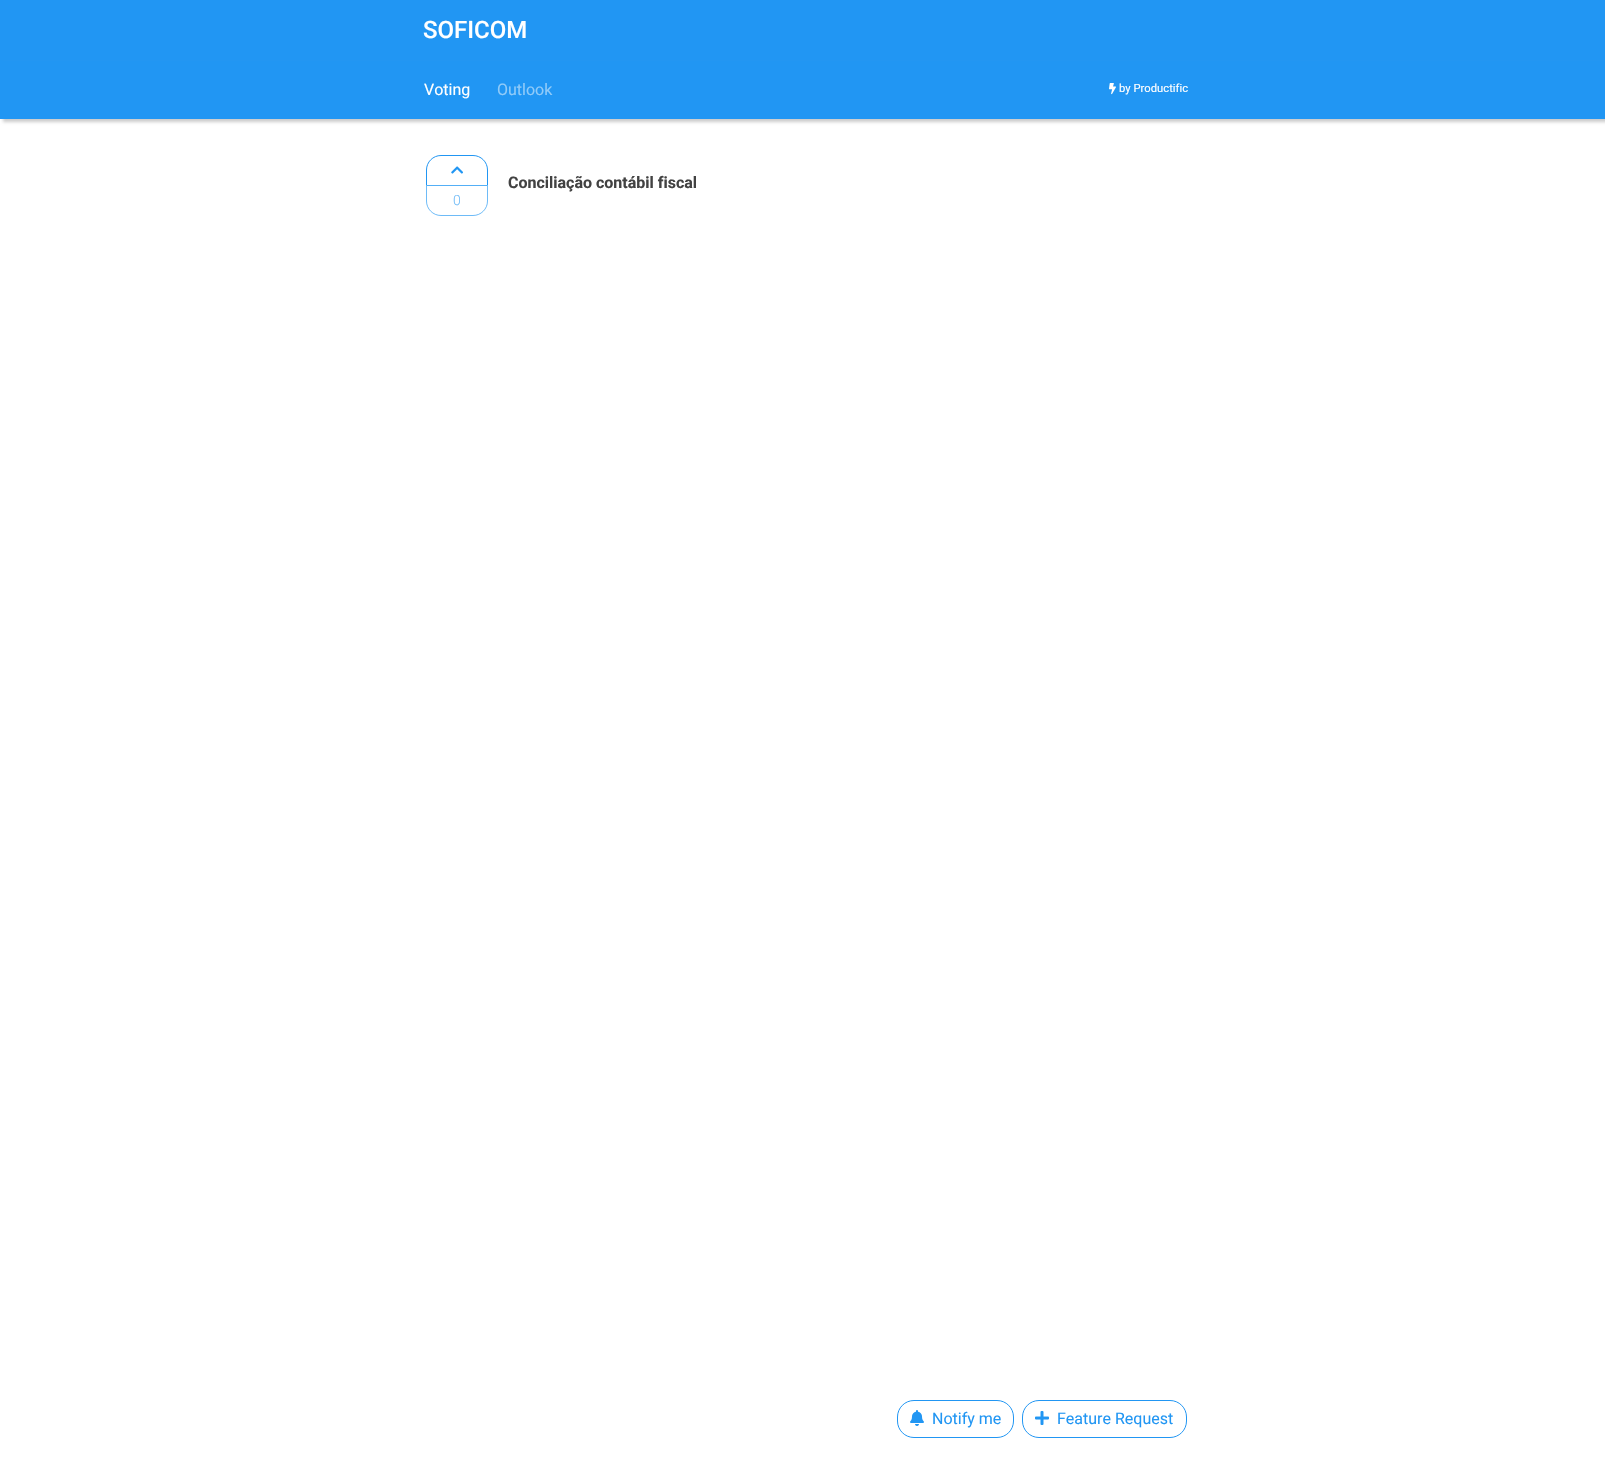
void draw(SkCanvas* canvas) {
    SkPaint paint;
    paint.setAntiAlias(true);
    canvas->clear(0xFFFFFFFF);
    paint.setColor(0xFF2196F3);
    canvas->drawRect(SkRect::MakeXYWH(0, 0, 1605, 61), paint);
    SkFont font1(fontMgr->matchFamilyStyle("Roboto", SkFontStyle(500, SkFontStyle::kNormal_Width, SkFontStyle::kUpright_Slant)), 24);
    font1.setSubpixel(true);
    paint.setColor(0xFFFFFFFF);
    canvas->drawString("SOFICOM", 423, 38, font1, paint);
    paint.setColor(0xFFCCCCCC);
    paint.setMaskFilter(SkMaskFilter::MakeBlur(kNormal_SkBlurStyle, 1.5f));
    canvas->drawRect(SkRect::MakeXYWH(3, 64, 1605, 58), paint);
    paint.setMaskFilter(nullptr);
    paint.setColor(0xFF2196F3);
    canvas->drawRect(SkRect::MakeXYWH(0, 61, 1605, 58), paint);
    SkFont font2(fontMgr->matchFamilyStyle("Roboto", SkFontStyle::Normal()), 16);
    font2.setSubpixel(true);
    paint.setColor(0xFFFFFFFF);
    canvas->drawString("Voting", 424, 95, font2, paint);
    paint.setColor(0xFF90CBF9);
    canvas->drawString("Outlook", 497, 95, font2, paint);
    canvas->drawImageRect(SkImages::DeferredFromEncodedData(SkData::MakeFromFileName("img1.png")), SkRect::MakeXYWH(1109, 83, 7, 12), SkSamplingOptions());
    SkFont font3(fontMgr->matchFamilyStyle("Roboto", SkFontStyle::Normal()), 11.25f);
    font3.setSubpixel(true);
    paint.setColor(0xFFFFFFFF);
    canvas->drawString("by Productific", 1119, 92, font3, paint);
    SkFont font4(fontMgr->matchFamilyStyle("Roboto", SkFontStyle::Bold()), 16);
    font4.setSubpixel(true);
    paint.setColor(0xFF424242);
    canvas->drawString("Conciliação contábil fiscal", 508, 188, font4, paint);
    paint.setStyle(SkPaint::kStroke_Style);
    paint.setStrokeWidth(1);
    paint.setColor(0xFF2196F3);
    canvas->drawPath(SkPathBuilder().moveTo(441, 155.5f).lineTo(473, 155.5f).cubicTo(481, 155.5f, 487.5f, 162, 487.5f, 170).lineTo(487.5f, 185.5f).lineTo(426.5f, 185.5f).lineTo(426.5f, 170).cubicTo(426.5f, 162, 433, 155.5f, 441, 155.5f).close().detach(), paint);
    canvas->drawImageRect(SkImages::DeferredFromEncodedData(SkData::MakeFromFileName("img2.png")), SkRect::MakeXYWH(451, 166, 12, 8), SkSamplingOptions());
    paint.setStyle(SkPaint::kFill_Style);
    paint.setColor(0xA6FFFFFF);
    canvas->drawPath(SkPathBuilder().moveTo(426, 185).lineTo(488, 185).lineTo(488, 201).cubicTo(488, 209.5f, 481.5f, 216, 473, 216).lineTo(441, 216).cubicTo(432.5f, 216, 426, 209.5f, 426, 201).close().detach(), paint);
    paint.setStyle(SkPaint::kStroke_Style);
    paint.setColor(0xA62196F3);
    canvas->drawPath(SkPathBuilder().moveTo(426.5f, 185.5f).lineTo(487.5f, 185.5f).lineTo(487.5f, 201).cubicTo(487.5f, 209, 481, 215.5f, 473, 215.5f).lineTo(441, 215.5f).cubicTo(433, 215.5f, 426.5f, 209, 426.5f, 201).close().detach(), paint);
    SkFont font5(fontMgr->matchFamilyStyle("Roboto", SkFontStyle(300, SkFontStyle::kNormal_Width, SkFontStyle::kUpright_Slant)), 14);
    font5.setSubpixel(true);
    paint.setStyle(SkPaint::kFill_Style);
    paint.setColor(0xFF6FBBF7);
    canvas->drawString("0", 453, 205, font5, paint);
    paint.setStyle(SkPaint::kStroke_Style);
    paint.setColor(0xFF2196F3);
    canvas->drawRoundRect(SkRect::MakeXYWH(897.5f, 1400.5f, 116, 37), 16.5f, 16.5f, paint);
    canvas->drawImageRect(SkImages::DeferredFromEncodedData(SkData::MakeFromFileName("img3.png")), SkRect::MakeXYWH(910, 1410, 14, 16), SkSamplingOptions());
    paint.setStyle(SkPaint::kFill_Style);
    canvas->drawString("Notify me", 932, 1424, font2, paint);
    paint.setStyle(SkPaint::kStroke_Style);
    canvas->drawRoundRect(SkRect::MakeXYWH(1022.5f, 1400.5f, 164, 37), 16.5f, 16.5f, paint);
    canvas->drawImageRect(SkImages::DeferredFromEncodedData(SkData::MakeFromFileName("img4.png")), SkRect::MakeXYWH(1035, 1411, 14, 14), SkSamplingOptions());
    paint.setStyle(SkPaint::kFill_Style);
    canvas->drawString("Feature Request", 1057, 1424, font2, paint);
}
